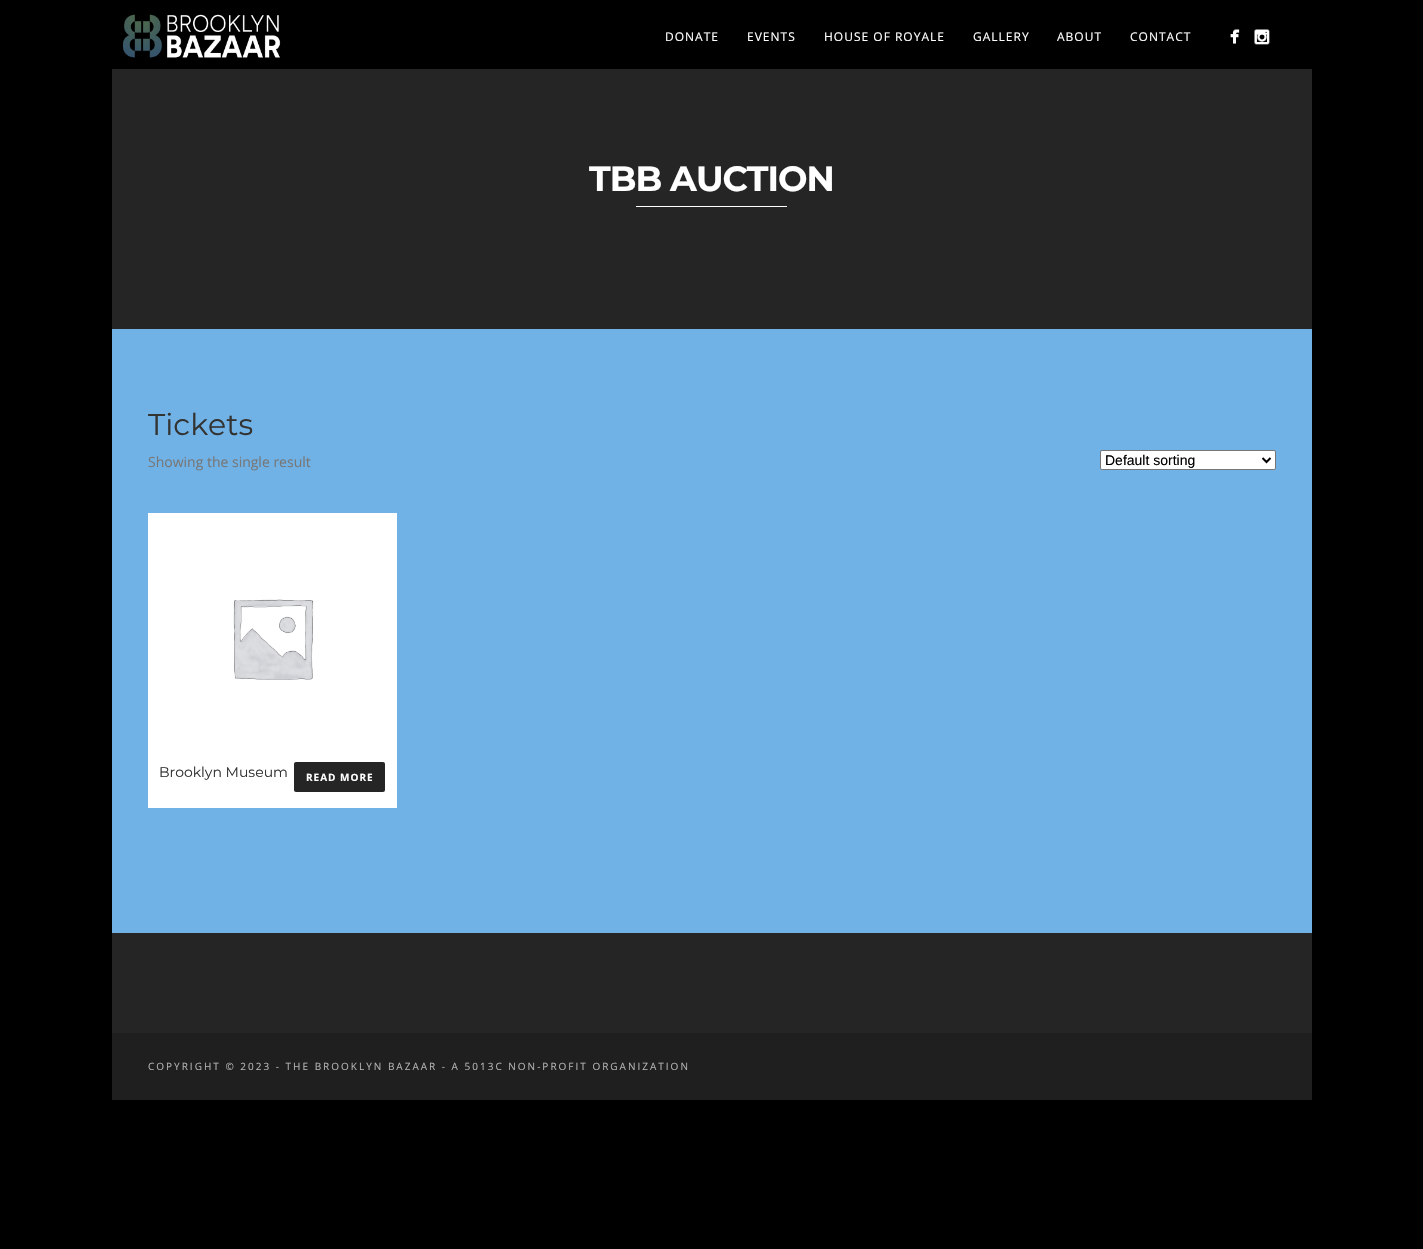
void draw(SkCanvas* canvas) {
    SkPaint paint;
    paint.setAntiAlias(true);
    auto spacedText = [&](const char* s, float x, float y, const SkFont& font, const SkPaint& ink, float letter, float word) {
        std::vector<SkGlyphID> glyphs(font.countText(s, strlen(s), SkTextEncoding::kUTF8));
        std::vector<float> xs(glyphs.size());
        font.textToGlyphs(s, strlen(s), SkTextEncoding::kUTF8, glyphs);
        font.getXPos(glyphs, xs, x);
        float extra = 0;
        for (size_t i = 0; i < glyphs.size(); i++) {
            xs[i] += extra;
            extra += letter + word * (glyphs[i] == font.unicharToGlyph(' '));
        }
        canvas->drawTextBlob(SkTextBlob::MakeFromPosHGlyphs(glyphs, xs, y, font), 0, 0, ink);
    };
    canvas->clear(0xFF000000);
    paint.setColor(0xFF70B2E6);
    canvas->drawRect(SkRect::MakeXYWH(112, 329, 1200, 604), paint);
    paint.setColor(0xFF252525);
    canvas->drawRect(SkRect::MakeXYWH(112, 69, 1200, 260), paint);
    canvas->drawImageRect(SkImages::DeferredFromEncodedData(SkData::MakeFromFileName("img1.png")), SkRect::MakeXYWH(122, 14, 159, 44), SkSamplingOptions());
    SkFont font1(fontMgr->matchFamilyStyle("Open Sans", SkFontStyle::Normal()), 12);
    font1.setSubpixel(true);
    paint.setColor(0xFFFFFFFF);
    spacedText("DONATE", 665, 41, font1, paint, 1, 0);
    spacedText("EVENTS", 747, 41, font1, paint, 1, 0);
    spacedText("HOUSE OF ROYALE", 824, 41, font1, paint, 1, 0);
    spacedText("GALLERY", 973, 41, font1, paint, 1, 0);
    spacedText("ABOUT", 1057, 41, font1, paint, 1, 0);
    spacedText("CONTACT", 1130, 41, font1, paint, 1, 0);
    canvas->drawImageRect(SkImages::DeferredFromEncodedData(SkData::MakeFromFileName("img2.png")), SkRect::MakeXYWH(1230, 29, 10, 15), SkSamplingOptions());
    canvas->drawImageRect(SkImages::DeferredFromEncodedData(SkData::MakeFromFileName("img3.png")), SkRect::MakeXYWH(1254, 29, 16, 16), SkSamplingOptions());
    SkFont font2(fontMgr->matchFamilyStyle("Montserrat", SkFontStyle::Bold()), 35);
    font2.setSubpixel(true);
    spacedText("TBB AUCTION", 589, 191, font2, paint, -1, 0);
    canvas->drawRect(SkRect::MakeXYWH(636, 206, 151, 1), paint);
    SkFont font3(fontMgr->matchFamilyStyle("Montserrat", SkFontStyle::Normal()), 30);
    font3.setSubpixel(true);
    paint.setColor(0xFF333332);
    canvas->drawString("Tickets", 148, 435, font3, paint);
    SkFont font4(fontMgr->matchFamilyStyle("Open Sans", SkFontStyle::Normal()), 14);
    font4.setSubpixel(true);
    paint.setColor(0xFF777777);
    canvas->drawString("Showing the single result", 148, 467, font4, paint);
    paint.setColor(0xFFFFFFFF);
    canvas->drawRoundRect(SkRect::MakeXYWH(1100.5f, 450.5f, 175, 19), 1.5f, 1.5f, paint);
    paint.setStyle(SkPaint::kStroke_Style);
    paint.setStrokeWidth(1);
    paint.setColor(0xFF767676);
    canvas->drawRoundRect(SkRect::MakeXYWH(1100.5f, 450.5f, 175, 19), 1.5f, 1.5f, paint);
    paint.setStrokeWidth(2);
    paint.setColor(0xFF000000);
    canvas->drawPath(SkPathBuilder().moveTo(1262.5f, 458).lineTo(1266.5f, 462).lineTo(1270.5f, 458).detach(), paint);
    SkFont font5(fontMgr->matchFamilyStyle("Liberation Sans", SkFontStyle::Normal()), 14);
    font5.setSubpixel(true);
    paint.setStyle(SkPaint::kFill_Style);
    canvas->drawString("Default sorting", 1105, 465, font5, paint);
    paint.setColor(0xFFFFFFFF);
    canvas->drawRect(SkRect::MakeXYWH(148, 513, 249, 295), paint);
    canvas->drawImageRect(SkImages::DeferredFromEncodedData(SkData::MakeFromFileName("img4.png")), SkRect::MakeXYWH(233, 599, 81, 81), SkSamplingOptions());
    SkFont font6(fontMgr->matchFamilyStyle("Montserrat", SkFontStyle::Normal()), 14);
    font6.setSubpixel(true);
    paint.setColor(0xFF333332);
    canvas->drawString("Brooklyn Museum", 159, 777, font6, paint);
    paint.setColor(0xFF252525);
    canvas->drawRoundRect(SkRect::MakeXYWH(294, 762, 91, 30), 2, 2, paint);
    SkFont font7(fontMgr->matchFamilyStyle("Open Sans", SkFontStyle::Bold()), 10);
    font7.setSubpixel(true);
    paint.setColor(0xFFFFFFFF);
    spacedText("READ MORE", 306, 781, font7, paint, 1, 0);
    paint.setColor(0xFF252525);
    canvas->drawRect(SkRect::MakeXYWH(112, 933, 1200, 100), paint);
    paint.setColor(0xFF1F1F1F);
    canvas->drawRect(SkRect::MakeXYWH(112, 1033, 1200, 67), paint);
    SkFont font8(fontMgr->matchFamilyStyle("Open Sans", SkFontStyle::Normal()), 10);
    font8.setSubpixel(true);
    paint.setColor(0xFFB3B3B1);
    spacedText("COPYRIGHT © 2023 - THE BROOKLYN BAZAAR - A 5013C NON-PROFIT ORGANIZATION", 148, 1070, font8, paint, 2, 0);
}
